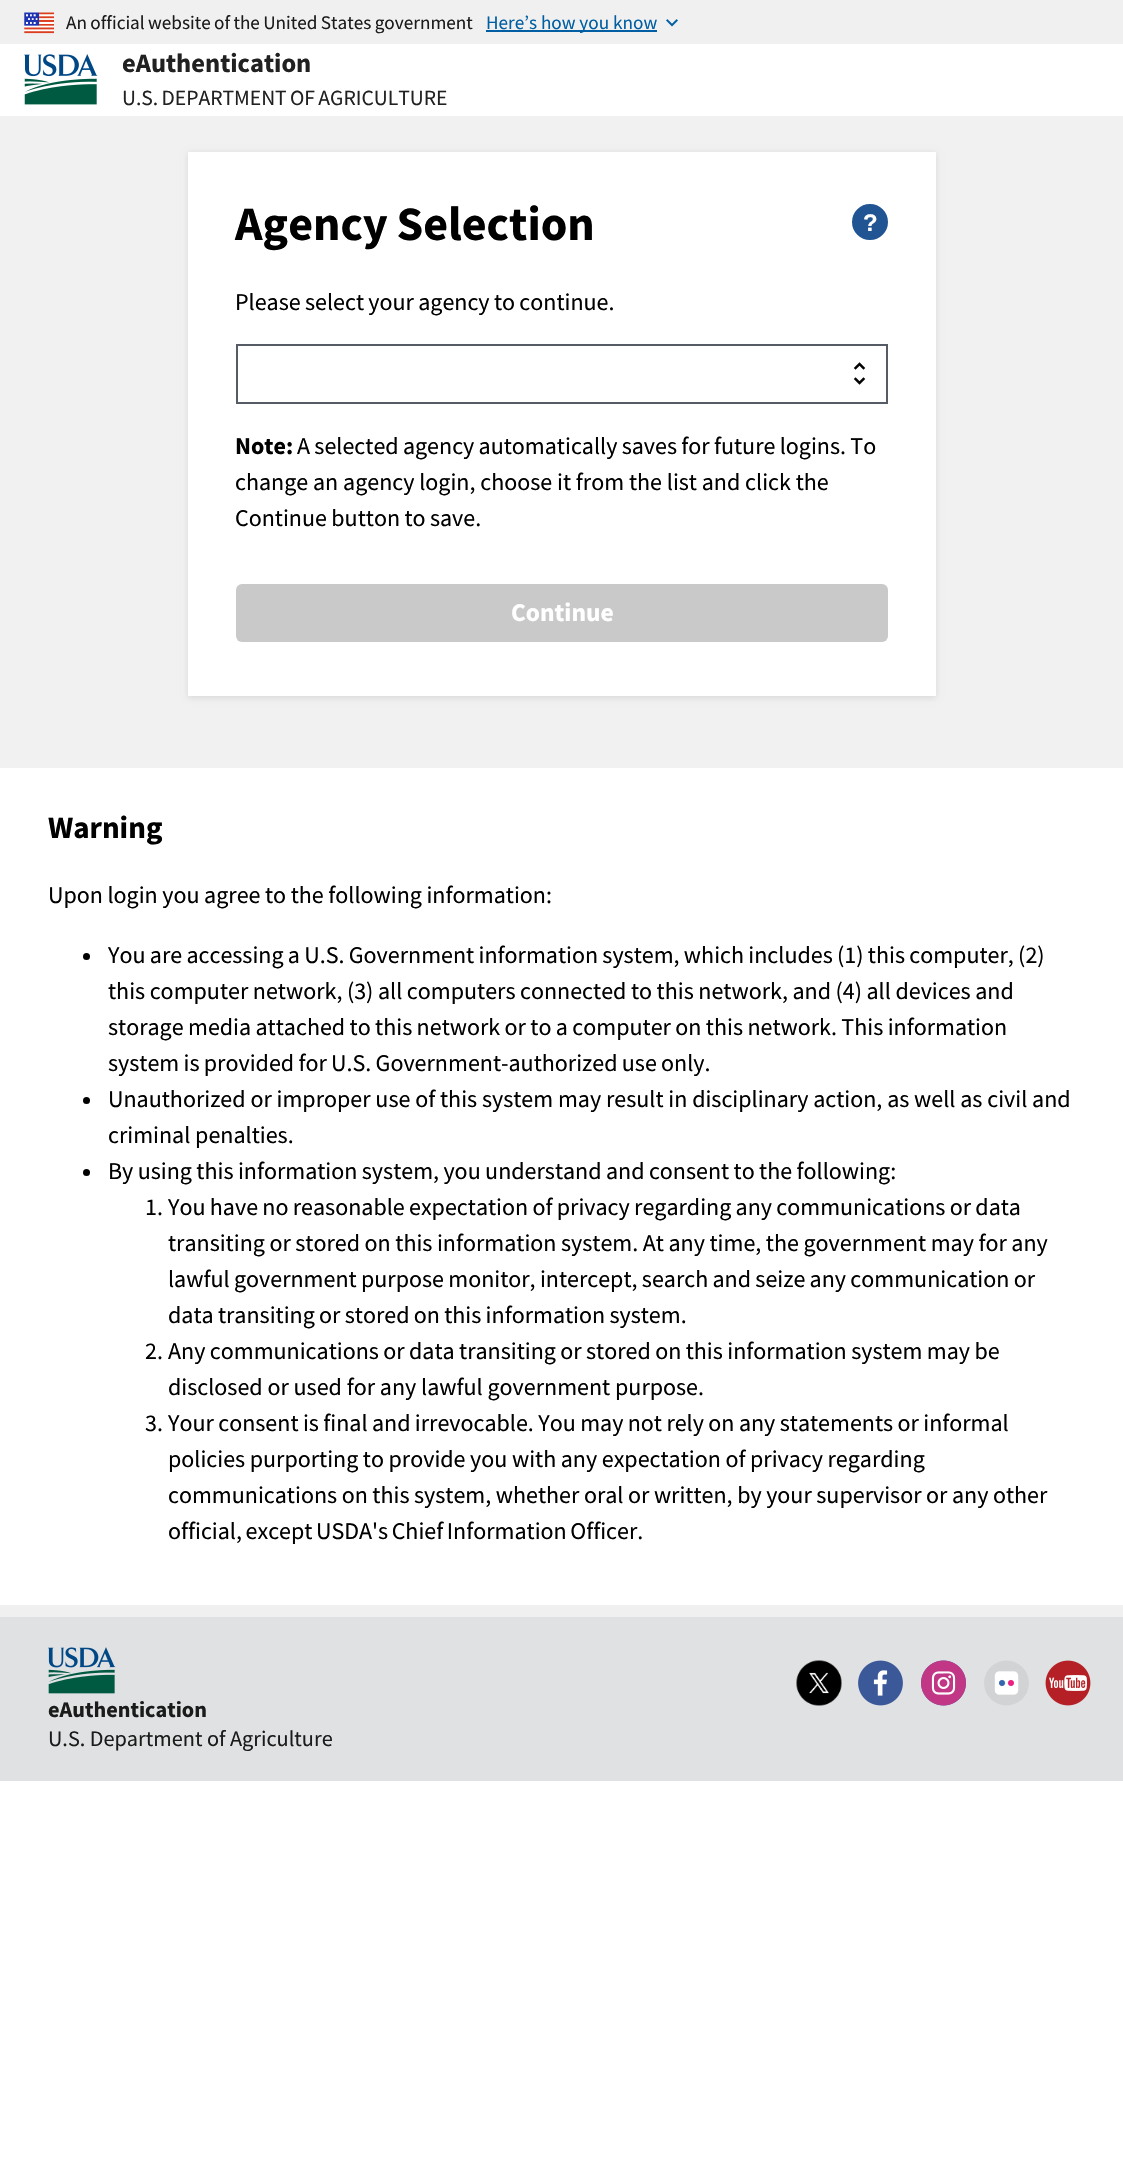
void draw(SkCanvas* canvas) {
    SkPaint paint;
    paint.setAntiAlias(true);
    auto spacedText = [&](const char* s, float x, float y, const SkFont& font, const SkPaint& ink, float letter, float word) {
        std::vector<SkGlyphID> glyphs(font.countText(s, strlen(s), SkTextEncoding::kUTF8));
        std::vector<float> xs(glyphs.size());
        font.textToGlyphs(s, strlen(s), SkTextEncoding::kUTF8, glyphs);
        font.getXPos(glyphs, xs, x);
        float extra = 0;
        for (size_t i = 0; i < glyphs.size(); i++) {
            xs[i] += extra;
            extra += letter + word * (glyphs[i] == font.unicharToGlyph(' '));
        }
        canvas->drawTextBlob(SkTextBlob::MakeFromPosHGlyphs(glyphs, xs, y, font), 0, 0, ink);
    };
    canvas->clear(0xFFFFFFFF);
    paint.setColor(0xFFF0F0F0);
    canvas->drawRect(SkRect::MakeXYWH(0, 0, 1123, 44), paint);
    canvas->drawImageRect(SkImages::DeferredFromEncodedData(SkData::MakeFromFileName("img1.png")), SkRect::MakeXYWH(24, 12, 30, 22), SkSamplingOptions());
    SkFont font1(fontMgr->matchFamilyStyle("Source Sans Pro", SkFontStyle::Normal()), 19.2f);
    font1.setSubpixel(true);
    paint.setColor(0xFF1B1B1B);
    spacedText("An official website of the United States government", 66, 29, font1, paint, 0, -0.5f);
    paint.setColor(0xFF005EA2);
    canvas->drawRect(SkRect::MakeXYWH(486, 30, 171, 2), paint);
    canvas->drawString("Here’s how you know", 486, 29, font1, paint);
    canvas->drawImageRect(SkImages::DeferredFromEncodedData(SkData::MakeFromFileName("img2.png")), SkRect::MakeXYWH(666, 19, 12, 8), SkSamplingOptions());
    canvas->drawImageRect(SkImages::DeferredFromEncodedData(SkData::MakeFromFileName("img3.png")), SkRect::MakeXYWH(24, 54, 74, 51), SkSamplingOptions());
    SkFont font2(fontMgr->matchFamilyStyle("Source Sans Pro", SkFontStyle::Bold()), 26.5f);
    font2.setSubpixel(true);
    paint.setColor(0xFF212121);
    canvas->drawString("eAuthentication", 122, 72, font2, paint);
    SkFont font3(fontMgr->matchFamilyStyle("Source Sans Pro", SkFontStyle::Normal()), 21.6f);
    font3.setSubpixel(true);
    spacedText("U.S. DEPARTMENT OF AGRICULTURE", 122, 105, font3, paint, 0, -1);
    paint.setColor(0xFFF1F1F1);
    canvas->drawRect(SkRect::MakeXYWH(0, 116, 1123, 652), paint);
    paint.setColor(0x1A000000);
    paint.setMaskFilter(SkMaskFilter::MakeBlur(kNormal_SkBlurStyle, 3));
    canvas->drawRect(SkRect::MakeXYWH(188, 153, 748, 545), paint);
    paint.setMaskFilter(nullptr);
    paint.setColor(0xFFFFFFFF);
    canvas->drawRect(SkRect::MakeXYWH(188, 152, 748, 544), paint);
    SkFont font4(fontMgr->matchFamilyStyle("Source Sans Pro", SkFontStyle::Bold()), 48);
    font4.setSubpixel(true);
    paint.setColor(0xFF000000);
    spacedText("Agency Selection", 235, 240, font4, paint, 0, -1);
    paint.setColor(0xFF205493);
    canvas->drawCircle(870, 222, 16.5f, paint);
    paint.setStyle(SkPaint::kStroke_Style);
    paint.setStrokeWidth(3);
    canvas->drawCircle(870, 222, 16.5f, paint);
    SkFont font5(fontMgr->matchFamilyStyle("Liberation Sans", SkFontStyle::Bold()), 24);
    font5.setSubpixel(true);
    paint.setStyle(SkPaint::kFill_Style);
    paint.setColor(0xFFFFFFFF);
    canvas->drawString("?", 863, 231, font5, paint);
    SkFont font6(fontMgr->matchFamilyStyle("Source Sans Pro", SkFontStyle::Normal()), 24);
    font6.setSubpixel(true);
    paint.setColor(0xFF000000);
    spacedText("Please select your agency to continue.", 235, 310, font6, paint, 0, -0.5f);
    canvas->drawImageRect(SkImages::DeferredFromEncodedData(SkData::MakeFromFileName("img4.png")), SkRect::MakeXYWH(853, 362, 13, 23), SkSamplingOptions());
    paint.setStyle(SkPaint::kStroke_Style);
    paint.setStrokeWidth(2);
    paint.setColor(0xFF565C65);
    canvas->drawRect(SkRect::MakeXYWH(237, 345, 650, 58), paint);
    SkFont font7(fontMgr->matchFamilyStyle("Source Sans Pro", SkFontStyle::Bold()), 24);
    font7.setSubpixel(true);
    paint.setStyle(SkPaint::kFill_Style);
    paint.setColor(0xFF000000);
    canvas->drawString("Note:", 235, 454, font7, paint);
    spacedText("A selected agency automatically saves for future logins. To", 297, 454, font6, paint, 0, -0.5f);
    canvas->drawString("change an agency login, choose it from the list and click the", 235, 490, font6, paint);
    spacedText("Continue button to save.", 235, 526, font6, paint, 0, -0.4f);
    paint.setColor(0xFFC9C9C9);
    canvas->drawRoundRect(SkRect::MakeXYWH(236, 584, 652, 58), 6, 6, paint);
    SkFont font8(fontMgr->matchFamilyStyle("Source Sans Pro", SkFontStyle::Bold()), 25.5f);
    font8.setSubpixel(true);
    paint.setColor(0xFFFFFFFF);
    canvas->drawString("Continue", 511, 621, font8, paint);
    SkFont font9(fontMgr->matchFamilyStyle("Source Sans Pro", SkFontStyle::Bold()), 31);
    font9.setSubpixel(true);
    paint.setColor(0xFF000000);
    canvas->drawString("Warning", 48, 838, font9, paint);
    spacedText("Upon login you agree to the following information:", 48, 903, font6, paint, 0, -0.25f);
    canvas->drawCircle(86.5f, 956.5f, 3.5f, paint);
    spacedText("You are accessing a U.S. Government information system, which includes (1) this computer, (2)", 108, 963, font6, paint, 0, -0.5f);
    spacedText("this computer network, (3) all computers connected to this network, and (4) all devices and", 108, 999, font6, paint, 0, -0.25f);
    spacedText("storage media attached to this network or to a computer on this network. This information", 108, 1035, font6, paint, 0, -0.4f);
    spacedText("system is provided for U.S. Government-authorized use only.", 108, 1071, font6, paint, 0, -0.5f);
    canvas->drawCircle(86.5f, 1100.5f, 3.5f, paint);
    canvas->drawString("Unauthorized or improper use of this system may result in disciplinary action, as well as civil and", 108, 1107, font6, paint);
    canvas->drawString("criminal penalties.", 108, 1143, font6, paint);
    canvas->drawCircle(86.5f, 1172.5f, 3.5f, paint);
    spacedText("By using this information system, you understand and consent to the following:", 108, 1179, font6, paint, 0, -0.4f);
    canvas->drawString("1.", 145, 1215, font6, paint);
    spacedText("You have no reasonable expectation of privacy regarding any communications or data", 168, 1215, font6, paint, 0, -0.5f);
    spacedText("transiting or stored on this information system. At any time, the government may for any", 168, 1251, font6, paint, 0, -0.25f);
    spacedText("lawful government purpose monitor, intercept, search and seize any communication or", 168, 1287, font6, paint, 0, -0.5f);
    spacedText("data transiting or stored on this information system.", 168, 1323, font6, paint, 0, -0.5f);
    canvas->drawString("2.", 145, 1359, font6, paint);
    spacedText("Any communications or data transiting or stored on this information system may be", 168, 1359, font6, paint, 0, -0.4f);
    canvas->drawString("disclosed or used for any lawful government purpose.", 168, 1395, font6, paint);
    canvas->drawString("3.", 145, 1431, font6, paint);
    spacedText("Your consent is final and irrevocable. You may not rely on any statements or informal", 168, 1431, font6, paint, 0, -0.4f);
    spacedText("policies purporting to provide you with any expectation of privacy regarding", 168, 1467, font6, paint, 0, -0.25f);
    spacedText("communications on this system, whether oral or written, by your supervisor or any other", 168, 1503, font6, paint, 0, -0.25f);
    spacedText("official, except USDA's Chief Information Officer.", 168, 1539, font6, paint, 0, -1.25f);
    paint.setColor(0xFFF0F0F0);
    canvas->drawRect(SkRect::MakeXYWH(0, 1605, 1123, 12), paint);
    paint.setColor(0xFFDFE1E2);
    canvas->drawRect(SkRect::MakeXYWH(0, 1617, 1123, 164), paint);
    canvas->drawImageRect(SkImages::DeferredFromEncodedData(SkData::MakeFromFileName("img5.png")), SkRect::MakeXYWH(796, 1660, 46, 46), SkSamplingOptions());
    canvas->drawImageRect(SkImages::DeferredFromEncodedData(SkData::MakeFromFileName("img6.png")), SkRect::MakeXYWH(858, 1660, 45, 46), SkSamplingOptions());
    canvas->drawImageRect(SkImages::DeferredFromEncodedData(SkData::MakeFromFileName("img7.png")), SkRect::MakeXYWH(921, 1660, 45, 46), SkSamplingOptions());
    canvas->drawImageRect(SkImages::DeferredFromEncodedData(SkData::MakeFromFileName("img8.png")), SkRect::MakeXYWH(984, 1660, 45, 46), SkSamplingOptions());
    canvas->drawImageRect(SkImages::DeferredFromEncodedData(SkData::MakeFromFileName("img9.png")), SkRect::MakeXYWH(1045, 1660, 46, 46), SkSamplingOptions());
    canvas->drawImageRect(SkImages::DeferredFromEncodedData(SkData::MakeFromFileName("img10.png")), SkRect::MakeXYWH(48, 1647, 68, 47), SkSamplingOptions());
    SkFont font10(fontMgr->matchFamilyStyle("Source Sans Pro", SkFontStyle::Bold()), 22.25f);
    font10.setSubpixel(true);
    paint.setColor(0xFF1B1B1B);
    canvas->drawString("eAuthentication", 48, 1717, font10, paint);
    SkFont font11(fontMgr->matchFamilyStyle("Source Sans Pro", SkFontStyle::Normal()), 22.25f);
    font11.setSubpixel(true);
    canvas->drawString("U.S. Department of Agriculture", 48, 1746, font11, paint);
}
